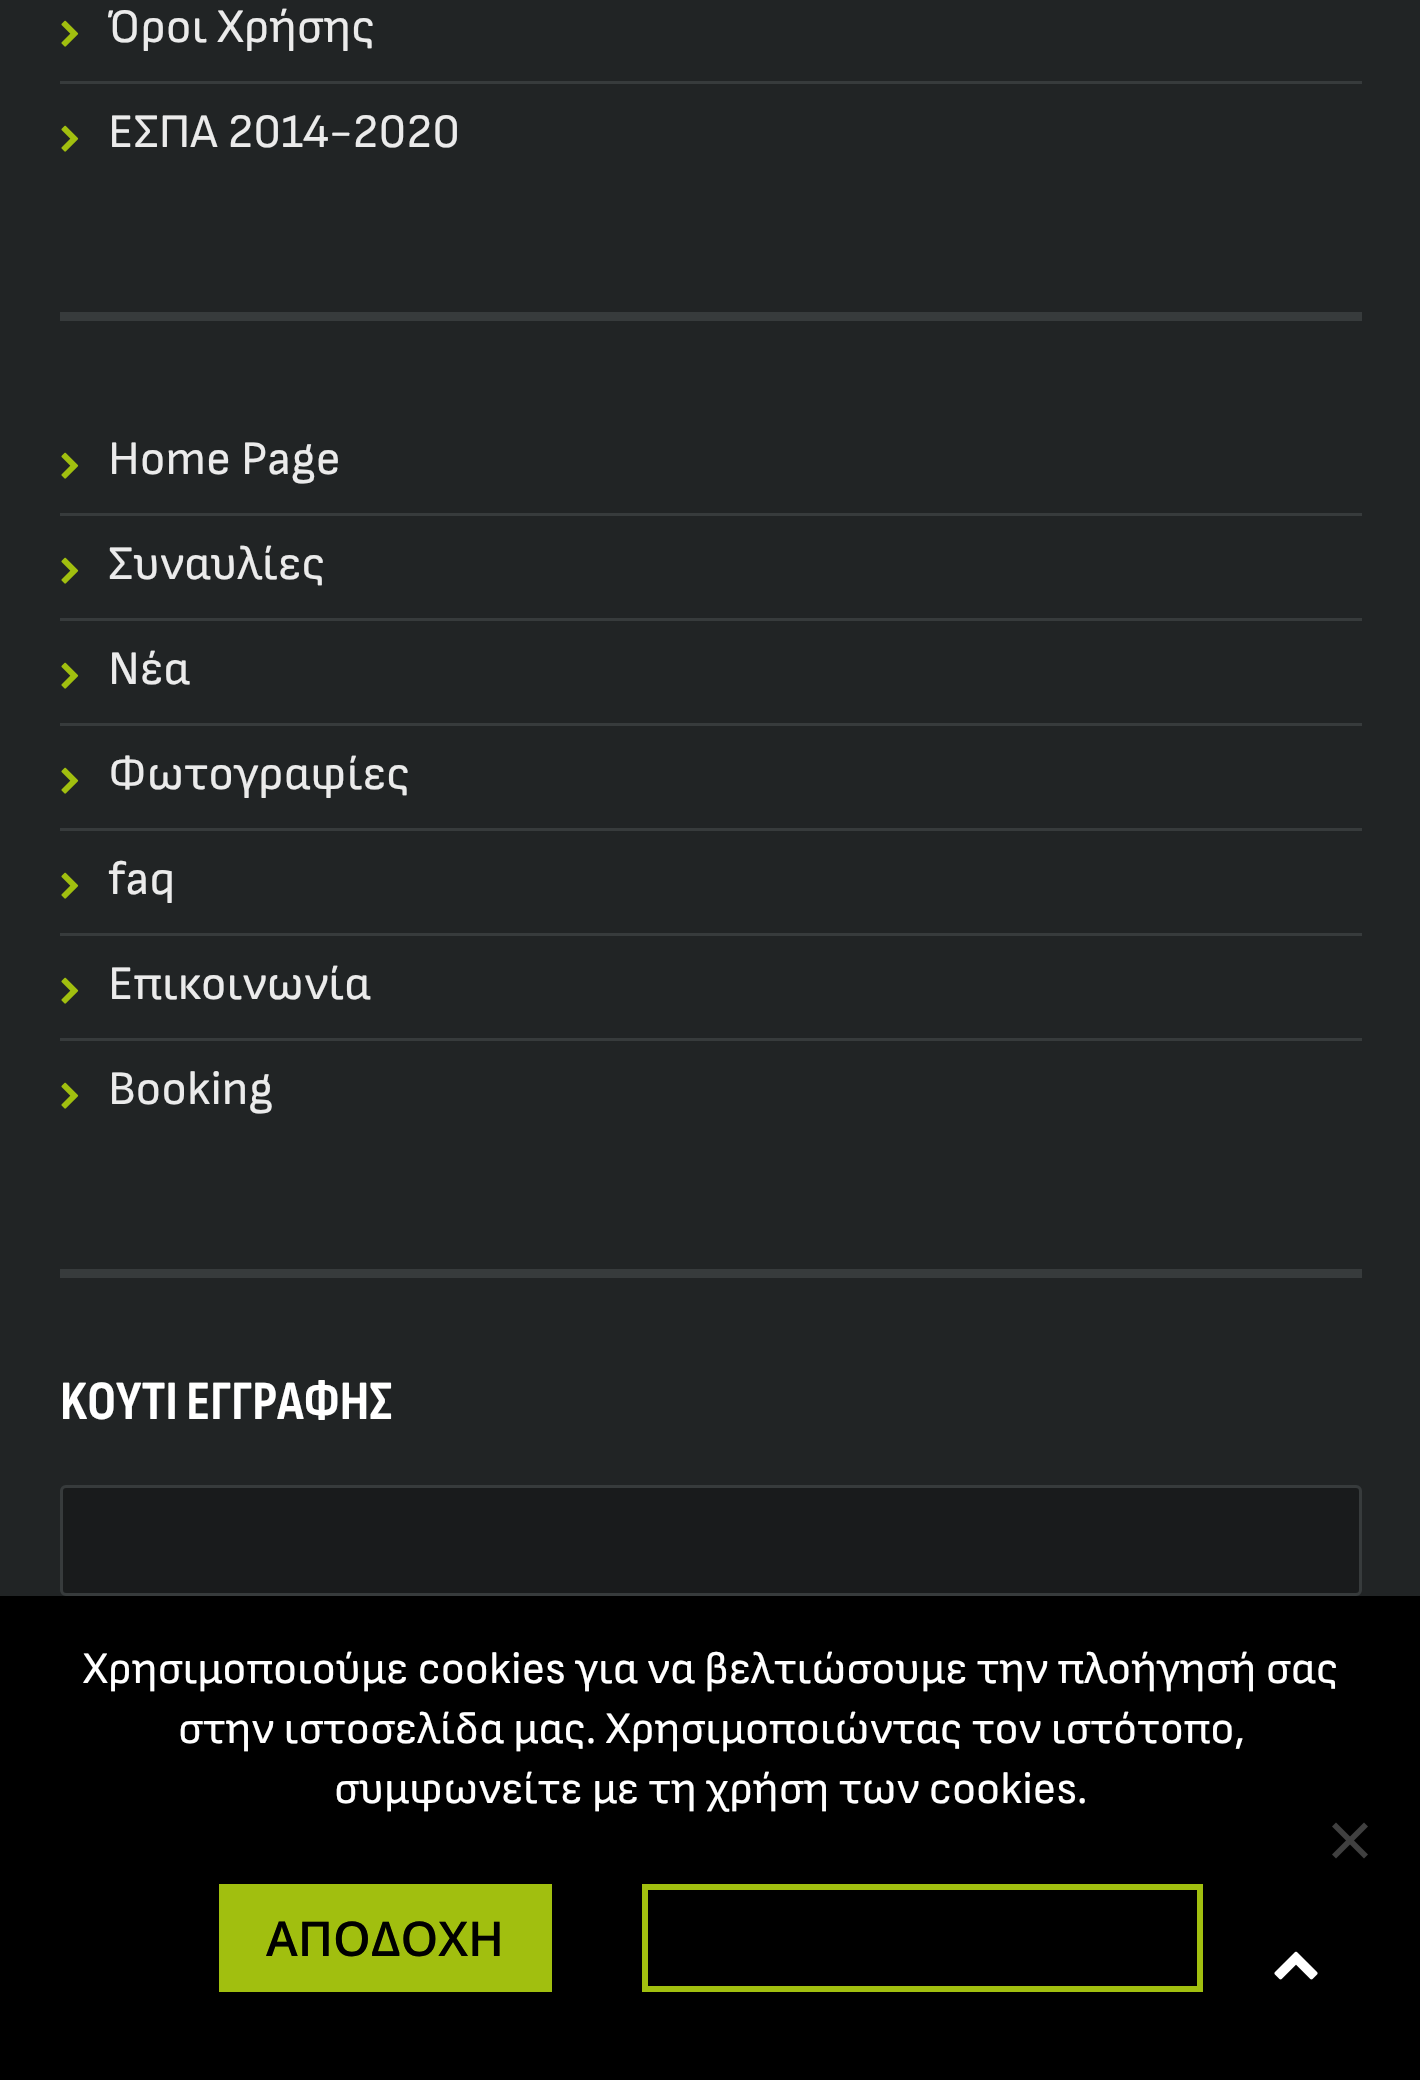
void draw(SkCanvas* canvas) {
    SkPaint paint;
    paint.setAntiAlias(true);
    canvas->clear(0xFF212425);
    paint.setColor(0xFF373B3C);
    canvas->drawRect(SkRect::MakeXYWH(60, 312, 1302, 9), paint);
    canvas->drawRect(SkRect::MakeXYWH(60, 81, 1302, 3), paint);
    canvas->drawImageRect(SkImages::DeferredFromEncodedData(SkData::MakeFromFileName("img1.png")), SkRect::MakeXYWH(61, 20, 18, 27), SkSamplingOptions());
    SkFont font1(fontMgr->matchFamilyStyle("Sofia Sans", SkFontStyle::Normal()), 48);
    font1.setSubpixel(true);
    paint.setColor(0xFFEBEBEB);
    canvas->drawString("Όροι Χρήσης", 108, 42, font1, paint);
    canvas->drawImageRect(SkImages::DeferredFromEncodedData(SkData::MakeFromFileName("img1.png")), SkRect::MakeXYWH(61, 125, 18, 27), SkSamplingOptions());
    canvas->drawString("ΕΣΠΑ 2014-2020", 108, 147, font1, paint);
    paint.setColor(0xFF373B3C);
    canvas->drawRect(SkRect::MakeXYWH(60, 1269, 1302, 9), paint);
    canvas->drawRect(SkRect::MakeXYWH(60, 513, 1302, 3), paint);
    canvas->drawImageRect(SkImages::DeferredFromEncodedData(SkData::MakeFromFileName("img1.png")), SkRect::MakeXYWH(61, 452, 18, 27), SkSamplingOptions());
    paint.setColor(0xFFEBEBEB);
    canvas->drawString("Home Page", 108, 474, font1, paint);
    paint.setColor(0xFF373B3C);
    canvas->drawRect(SkRect::MakeXYWH(60, 618, 1302, 3), paint);
    canvas->drawImageRect(SkImages::DeferredFromEncodedData(SkData::MakeFromFileName("img1.png")), SkRect::MakeXYWH(61, 557, 18, 27), SkSamplingOptions());
    paint.setColor(0xFFEBEBEB);
    canvas->drawString("Συναυλίες", 108, 579, font1, paint);
    paint.setColor(0xFF373B3C);
    canvas->drawRect(SkRect::MakeXYWH(60, 723, 1302, 3), paint);
    canvas->drawImageRect(SkImages::DeferredFromEncodedData(SkData::MakeFromFileName("img1.png")), SkRect::MakeXYWH(61, 662, 18, 27), SkSamplingOptions());
    paint.setColor(0xFFEBEBEB);
    canvas->drawString("Nέα", 108, 684, font1, paint);
    paint.setColor(0xFF373B3C);
    canvas->drawRect(SkRect::MakeXYWH(60, 828, 1302, 3), paint);
    canvas->drawImageRect(SkImages::DeferredFromEncodedData(SkData::MakeFromFileName("img1.png")), SkRect::MakeXYWH(61, 767, 18, 27), SkSamplingOptions());
    paint.setColor(0xFFEBEBEB);
    canvas->drawString("Φωτογραφίες", 108, 789, font1, paint);
    paint.setColor(0xFF373B3C);
    canvas->drawRect(SkRect::MakeXYWH(60, 933, 1302, 3), paint);
    canvas->drawImageRect(SkImages::DeferredFromEncodedData(SkData::MakeFromFileName("img1.png")), SkRect::MakeXYWH(61, 872, 18, 27), SkSamplingOptions());
    paint.setColor(0xFFEBEBEB);
    canvas->drawString("faq", 108, 894, font1, paint);
    paint.setColor(0xFF373B3C);
    canvas->drawRect(SkRect::MakeXYWH(60, 1038, 1302, 3), paint);
    canvas->drawImageRect(SkImages::DeferredFromEncodedData(SkData::MakeFromFileName("img1.png")), SkRect::MakeXYWH(61, 977, 18, 27), SkSamplingOptions());
    paint.setColor(0xFFEBEBEB);
    canvas->drawString("Επικοινωνία", 108, 999, font1, paint);
    canvas->drawImageRect(SkImages::DeferredFromEncodedData(SkData::MakeFromFileName("img1.png")), SkRect::MakeXYWH(61, 1082, 18, 27), SkSamplingOptions());
    canvas->drawString("Booking", 108, 1104, font1, paint);
    SkFont font2(fontMgr->matchFamilyStyle("Sofia Sans Condensed", SkFontStyle::Bold()), 55.25f);
    font2.setSubpixel(true);
    paint.setColor(0xFFFFFFFF);
    canvas->drawString("KOYTI ΕΓΓΡΑΦΗΣ", 60, 1419, font2, paint);
    paint.setColor(0xFF191B1C);
    canvas->drawRoundRect(SkRect::MakeXYWH(61.5f, 1486.5f, 1299, 108), 4.5f, 4.5f, paint);
    paint.setStyle(SkPaint::kStroke_Style);
    paint.setStrokeWidth(3);
    paint.setColor(0xFF373B3C);
    canvas->drawRoundRect(SkRect::MakeXYWH(61.5f, 1486.5f, 1299, 108), 4.5f, 4.5f, paint);
    paint.setStyle(SkPaint::kFill_Style);
    paint.setColor(0xFF000000);
    canvas->drawRect(SkRect::MakeXYWH(0, 1596, 1420, 484), paint);
    SkFont font3(fontMgr->matchFamilyStyle("Sofia Sans", SkFontStyle::Normal()), 45);
    font3.setSubpixel(true);
    paint.setColor(0xFFFFFFFF);
    canvas->drawString("Χρησιμοποιούμε cookies για να βελτιώσουμε την πλοήγησή σας", 83, 1683, font3, paint);
    canvas->drawString("στην ιστοσελίδα μας. Χρησιμοποιώντας τον ιστότοπο,", 178, 1743, font3, paint);
    canvas->drawString("συμφωνείτε με τη χρήση των cookies.", 334, 1803, font3, paint);
    paint.setColor(0xFF404040);
    canvas->drawPath(SkPathBuilder().moveTo(1364, 1822.5f).lineTo(1368, 1826.5f).lineTo(1336, 1858.5f).lineTo(1332, 1854.5f).close().detach(), paint);
    canvas->drawPath(SkPathBuilder().moveTo(1332, 1826.5f).lineTo(1336, 1822.5f).lineTo(1368, 1854.5f).lineTo(1364, 1858.5f).close().detach(), paint);
    paint.setColor(0xFFA1BF0F);
    canvas->drawRect(SkRect::MakeXYWH(219, 1884, 333, 108), paint);
    SkFont font4(fontMgr->matchFamilyStyle("Open Sans", SkFontStyle(600, SkFontStyle::kNormal_Width, SkFontStyle::kUpright_Slant)), 48);
    font4.setSubpixel(true);
    paint.setColor(0xFF000000);
    canvas->drawString("ΑΠΟΔΟΧΗ", 266, 1956, font4, paint);
    paint.setStyle(SkPaint::kStroke_Style);
    paint.setStrokeWidth(6);
    paint.setColor(0xFFA1BF0F);
    canvas->drawRect(SkRect::MakeXYWH(645, 1887, 555, 102), paint);
    canvas->drawImageRect(SkImages::DeferredFromEncodedData(SkData::MakeFromFileName("img2.png")), SkRect::MakeXYWH(1274, 1951, 44, 29), SkSamplingOptions());
}
